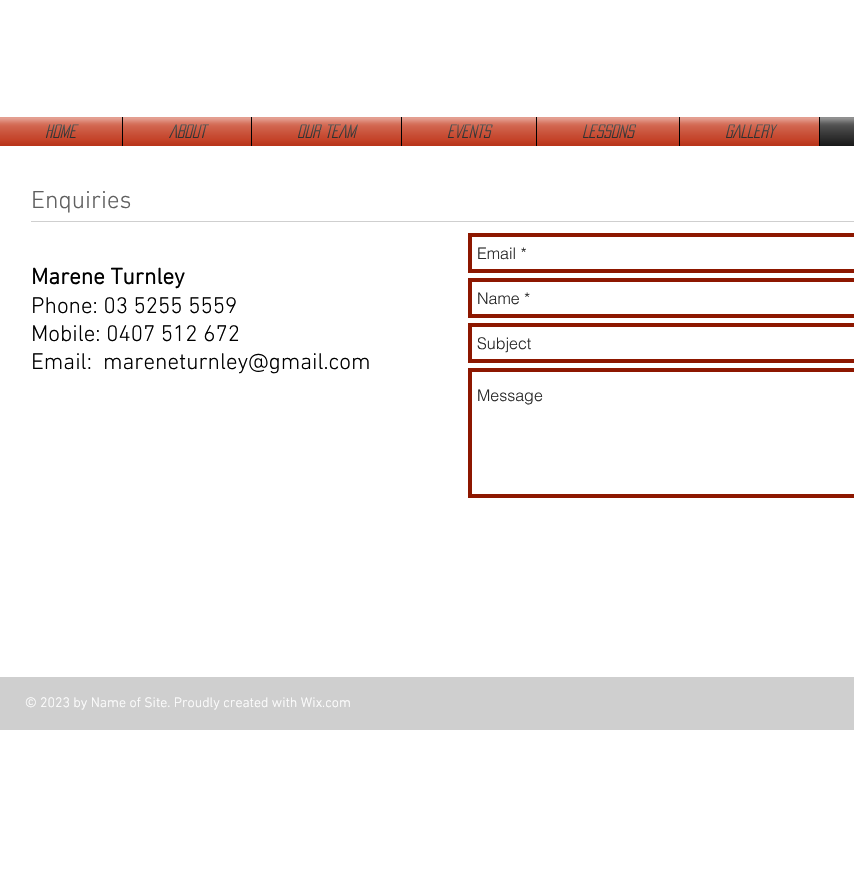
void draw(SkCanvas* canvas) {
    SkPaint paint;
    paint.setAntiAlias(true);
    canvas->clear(0xFFFFFFFF);
    paint.setColor(0xFFD32300);
    canvas->drawRect(SkRect::MakeXYWH(0, 117, 122, 29), paint);
    SkFont font1(fontMgr->matchFamilyStyle("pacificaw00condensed", SkFontStyle::Italic()), 17);
    font1.setSubpixel(true);
    paint.setColor(0xFF000000);
    canvas->drawString("HOME", 45, 138, font1, paint);
    canvas->drawImageRect(SkImages::DeferredFromEncodedData(SkData::MakeFromFileName("img1.png")), SkRect::MakeXYWH(0, 117, 122, 29), SkSamplingOptions());
    canvas->drawImageRect(SkImages::DeferredFromEncodedData(SkData::MakeFromFileName("img2.png")), SkRect::MakeXYWH(0, 117, 122, 29), SkSamplingOptions());
    paint.setColor(0xFFD32300);
    canvas->drawRect(SkRect::MakeXYWH(123, 117, 128, 29), paint);
    paint.setColor(0xFF000000);
    canvas->drawRect(SkRect::MakeXYWH(122, 117, 1, 29), paint);
    canvas->drawString("ABOUT", 169, 138, font1, paint);
    canvas->drawImageRect(SkImages::DeferredFromEncodedData(SkData::MakeFromFileName("img3.png")), SkRect::MakeXYWH(123, 117, 128, 29), SkSamplingOptions());
    canvas->drawImageRect(SkImages::DeferredFromEncodedData(SkData::MakeFromFileName("img4.png")), SkRect::MakeXYWH(123, 117, 128, 29), SkSamplingOptions());
    paint.setColor(0xFFD32300);
    canvas->drawRect(SkRect::MakeXYWH(252, 117, 149, 29), paint);
    paint.setColor(0xFF000000);
    canvas->drawRect(SkRect::MakeXYWH(251, 117, 1, 29), paint);
    canvas->drawString("OUR TEAM", 297, 138, font1, paint);
    canvas->drawImageRect(SkImages::DeferredFromEncodedData(SkData::MakeFromFileName("img5.png")), SkRect::MakeXYWH(252, 117, 149, 29), SkSamplingOptions());
    canvas->drawImageRect(SkImages::DeferredFromEncodedData(SkData::MakeFromFileName("img6.png")), SkRect::MakeXYWH(252, 117, 149, 29), SkSamplingOptions());
    paint.setColor(0xFFD32300);
    canvas->drawRect(SkRect::MakeXYWH(402, 117, 134, 29), paint);
    paint.setColor(0xFF000000);
    canvas->drawRect(SkRect::MakeXYWH(401, 117, 1, 29), paint);
    canvas->drawString("EVENTS", 447, 138, font1, paint);
    canvas->drawImageRect(SkImages::DeferredFromEncodedData(SkData::MakeFromFileName("img7.png")), SkRect::MakeXYWH(402, 117, 134, 29), SkSamplingOptions());
    canvas->drawImageRect(SkImages::DeferredFromEncodedData(SkData::MakeFromFileName("img8.png")), SkRect::MakeXYWH(402, 117, 134, 29), SkSamplingOptions());
    paint.setColor(0xFFD32300);
    canvas->drawRect(SkRect::MakeXYWH(537, 117, 142, 29), paint);
    paint.setColor(0xFF000000);
    canvas->drawRect(SkRect::MakeXYWH(536, 117, 1, 29), paint);
    canvas->drawString("LESSONS", 582, 138, font1, paint);
    canvas->drawImageRect(SkImages::DeferredFromEncodedData(SkData::MakeFromFileName("img9.png")), SkRect::MakeXYWH(537, 117, 142, 29), SkSamplingOptions());
    canvas->drawImageRect(SkImages::DeferredFromEncodedData(SkData::MakeFromFileName("img10.png")), SkRect::MakeXYWH(537, 117, 142, 29), SkSamplingOptions());
    paint.setColor(0xFFD32300);
    canvas->drawRect(SkRect::MakeXYWH(680, 117, 139, 29), paint);
    paint.setColor(0xFF000000);
    canvas->drawRect(SkRect::MakeXYWH(679, 117, 1, 29), paint);
    canvas->drawString("GALLERY", 725, 138, font1, paint);
    canvas->drawImageRect(SkImages::DeferredFromEncodedData(SkData::MakeFromFileName("img11.png")), SkRect::MakeXYWH(680, 117, 139, 29), SkSamplingOptions());
    canvas->drawImageRect(SkImages::DeferredFromEncodedData(SkData::MakeFromFileName("img12.png")), SkRect::MakeXYWH(680, 117, 139, 29), SkSamplingOptions());
    canvas->drawRect(SkRect::MakeXYWH(819, 117, 35, 29), paint);
    canvas->drawImageRect(SkImages::DeferredFromEncodedData(SkData::MakeFromFileName("img13.png")), SkRect::MakeXYWH(820, 117, 34, 29), SkSamplingOptions());
    canvas->drawImageRect(SkImages::DeferredFromEncodedData(SkData::MakeFromFileName("img14.png")), SkRect::MakeXYWH(820, 117, 34, 29), SkSamplingOptions());
    SkFont font2(fontMgr->matchFamilyStyle("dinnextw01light", SkFontStyle(300, SkFontStyle::kNormal_Width, SkFontStyle::kUpright_Slant)), 25);
    font2.setSubpixel(true);
    paint.setColor(0xFF606060);
    canvas->drawString("Enquiries", 31, 208, font2, paint);
    paint.setColor(0xFFCFCFCF);
    canvas->drawRect(SkRect::MakeXYWH(31, 221, 823, 1), paint);
    SkFont font3(fontMgr->matchFamilyStyle("dinnextw01light", SkFontStyle::Bold()), 23);
    font3.setSubpixel(true);
    paint.setColor(0xFF000000);
    canvas->drawString("Marene Turnley", 31, 284, font3, paint);
    SkFont font4(fontMgr->matchFamilyStyle("dinnextw01light", SkFontStyle(300, SkFontStyle::kNormal_Width, SkFontStyle::kUpright_Slant)), 23);
    font4.setSubpixel(true);
    canvas->drawString("Phone: 03 5255 5559", 31, 313, font4, paint);
    canvas->drawString("Mobile: 0407 512 672", 31, 341, font4, paint);
    canvas->drawString("Email:", 31, 369, font4, paint);
    canvas->drawString("mareneturnley@gmail.com", 103, 369, font4, paint);
    paint.setStyle(SkPaint::kStroke_Style);
    paint.setStrokeWidth(4);
    paint.setColor(0xFF8D1700);
    canvas->drawRect(SkRect::MakeXYWH(470, 235, 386, 36), paint);
    SkFont font5(fontMgr->matchFamilyStyle("helvetica", SkFontStyle(300, SkFontStyle::kNormal_Width, SkFontStyle::kUpright_Slant)), 16);
    font5.setSubpixel(true);
    paint.setStyle(SkPaint::kFill_Style);
    paint.setColor(0xFF2A2A2A);
    canvas->drawString("Email *", 477, 259, font5, paint);
    paint.setStyle(SkPaint::kStroke_Style);
    paint.setColor(0xFF8D1700);
    canvas->drawRect(SkRect::MakeXYWH(470, 280, 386, 36), paint);
    paint.setStyle(SkPaint::kFill_Style);
    paint.setColor(0xFF2A2A2A);
    canvas->drawString("Name *", 477, 304, font5, paint);
    paint.setStyle(SkPaint::kStroke_Style);
    paint.setColor(0xFF8D1700);
    canvas->drawRect(SkRect::MakeXYWH(470, 325, 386, 36), paint);
    paint.setStyle(SkPaint::kFill_Style);
    paint.setColor(0xFF2A2A2A);
    canvas->drawString("Subject", 477, 349, font5, paint);
    paint.setStyle(SkPaint::kStroke_Style);
    paint.setColor(0xFF8D1700);
    canvas->drawRect(SkRect::MakeXYWH(470, 370, 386, 126), paint);
    paint.setStyle(SkPaint::kFill_Style);
    paint.setColor(0xFF2A2A2A);
    canvas->drawString("Message", 477, 401, font5, paint);
    paint.setColor(0xFFCFCFCF);
    canvas->drawRect(SkRect::MakeXYWH(0, 677, 854, 53), paint);
    SkFont font6(fontMgr->matchFamilyStyle("dinnextw01light", SkFontStyle(300, SkFontStyle::kNormal_Width, SkFontStyle::kUpright_Slant)), 14);
    font6.setSubpixel(true);
    paint.setColor(0xFFFFFFFF);
    canvas->drawString("© 2023 by Name of Site. Proudly created with Wix.com", 25, 707, font6, paint);
}
